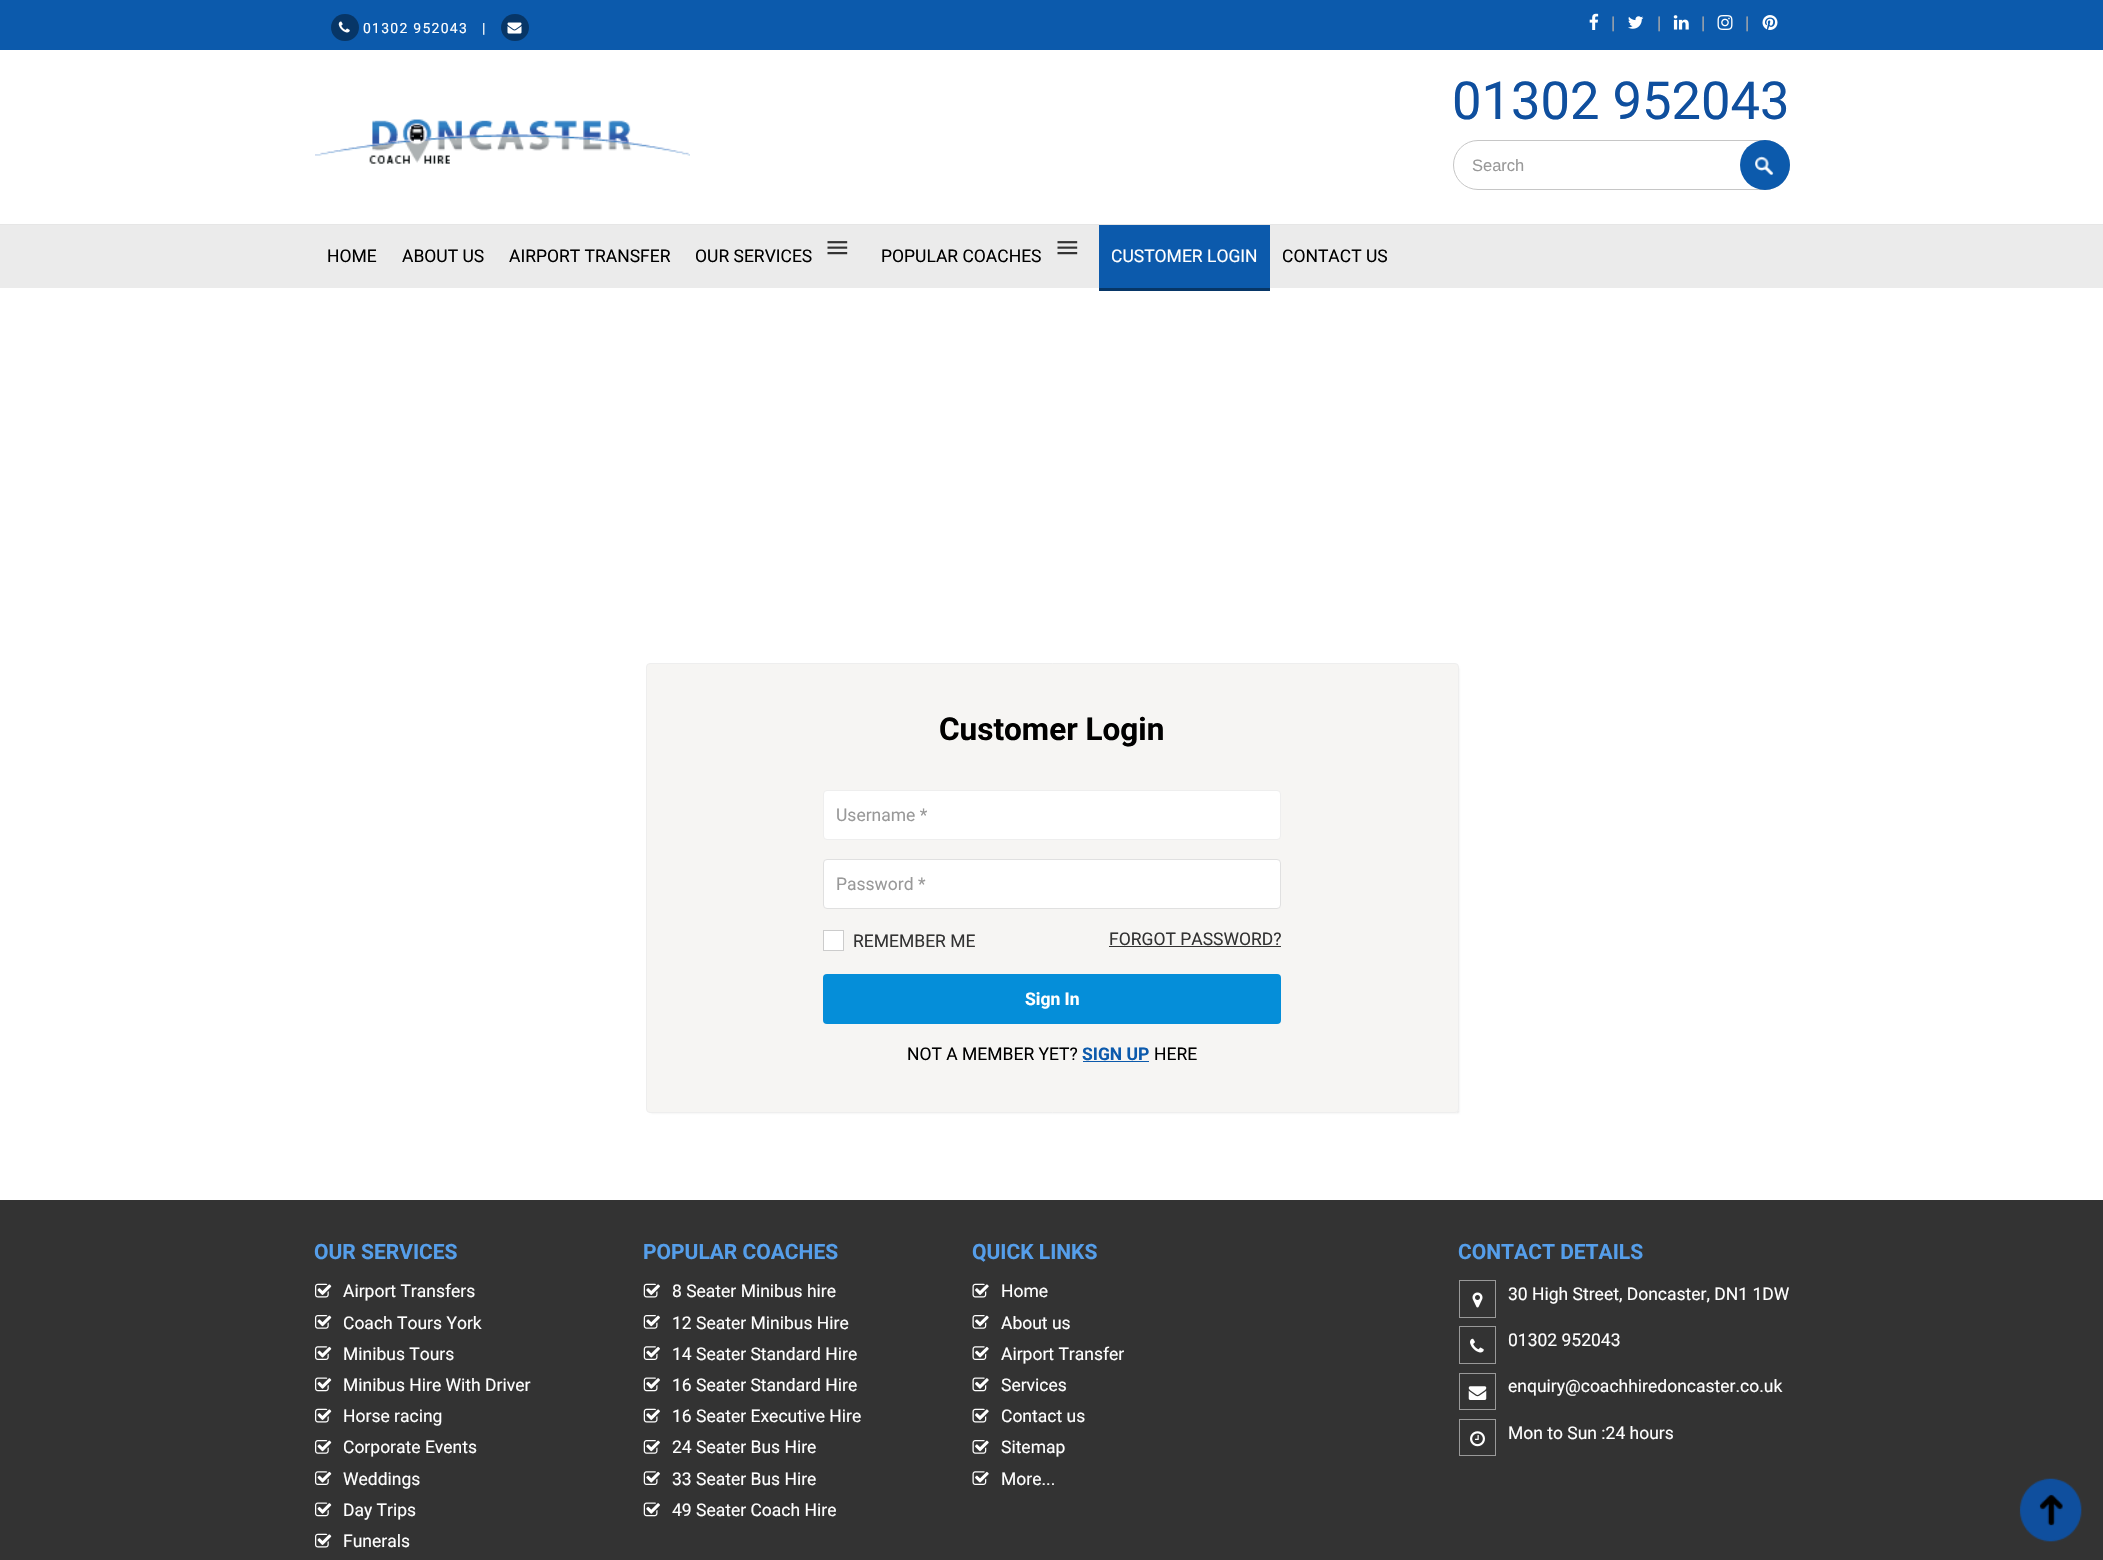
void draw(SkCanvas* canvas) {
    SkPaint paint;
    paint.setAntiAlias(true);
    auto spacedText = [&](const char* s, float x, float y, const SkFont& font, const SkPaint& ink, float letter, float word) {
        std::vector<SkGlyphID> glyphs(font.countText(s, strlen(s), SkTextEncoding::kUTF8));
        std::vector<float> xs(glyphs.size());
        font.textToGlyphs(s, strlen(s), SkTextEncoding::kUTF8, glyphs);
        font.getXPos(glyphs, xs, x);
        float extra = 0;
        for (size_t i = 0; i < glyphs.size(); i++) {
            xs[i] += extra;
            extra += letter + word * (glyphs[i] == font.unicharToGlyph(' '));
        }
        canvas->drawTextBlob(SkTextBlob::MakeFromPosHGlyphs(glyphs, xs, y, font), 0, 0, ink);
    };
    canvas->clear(0xFFFFFFFF);
    paint.setColor(0xFF0C5AAC);
    canvas->drawRect(SkRect::MakeXYWH(0, 0, 2103, 50), paint);
    paint.setColor(0xFF073667);
    canvas->drawRoundRect(SkRect::MakeXYWH(331, 14, 28, 27), 13.5f, 13.5f, paint);
    canvas->drawImageRect(SkImages::DeferredFromEncodedData(SkData::MakeFromFileName("img1.png")), SkRect::MakeXYWH(338, 21, 12, 12), SkSamplingOptions());
    SkFont font1(fontMgr->matchFamilyStyle("Roboto", SkFontStyle::Normal()), 14);
    font1.setSubpixel(true);
    paint.setColor(0xFFFFFFFF);
    spacedText("01302 952043", 363, 33, font1, paint, 1.25f, 0);
    spacedText("|", 482, 33, font1, paint, 1.25f, 0);
    paint.setColor(0xFF073667);
    canvas->drawRoundRect(SkRect::MakeXYWH(501, 14, 28, 27), 13.5f, 13.5f, paint);
    canvas->drawImageRect(SkImages::DeferredFromEncodedData(SkData::MakeFromFileName("img2.png")), SkRect::MakeXYWH(507, 22, 15, 12), SkSamplingOptions());
    canvas->drawImageRect(SkImages::DeferredFromEncodedData(SkData::MakeFromFileName("img3.png")), SkRect::MakeXYWH(1589, 13, 10, 17), SkSamplingOptions());
    SkFont font2(fontMgr->matchFamilyStyle("Roboto", SkFontStyle::Normal()), 17.5f);
    font2.setSubpixel(true);
    paint.setColor(0xFFAAAAAA);
    canvas->drawString("|", 1611, 29, font2, paint);
    canvas->drawImageRect(SkImages::DeferredFromEncodedData(SkData::MakeFromFileName("img4.png")), SkRect::MakeXYWH(1628, 16, 16, 13), SkSamplingOptions());
    canvas->drawString("|", 1657, 29, font2, paint);
    canvas->drawImageRect(SkImages::DeferredFromEncodedData(SkData::MakeFromFileName("img5.png")), SkRect::MakeXYWH(1673, 15, 16, 15), SkSamplingOptions());
    canvas->drawString("|", 1701, 29, font2, paint);
    canvas->drawImageRect(SkImages::DeferredFromEncodedData(SkData::MakeFromFileName("img6.png")), SkRect::MakeXYWH(1717, 15, 16, 15), SkSamplingOptions());
    canvas->drawString("|", 1745, 29, font2, paint);
    canvas->drawImageRect(SkImages::DeferredFromEncodedData(SkData::MakeFromFileName("img7.png")), SkRect::MakeXYWH(1762, 15, 16, 15), SkSamplingOptions());
    canvas->drawImageRect(SkImages::DeferredFromEncodedData(SkData::MakeFromFileName("img8.png")), SkRect::MakeXYWH(315, 119, 375, 45), SkSamplingOptions());
    SkFont font3(fontMgr->matchFamilyStyle("Roboto", SkFontStyle::Normal()), 52.5f);
    font3.setSubpixel(true);
    paint.setColor(0xFF0F4F9E);
    canvas->drawString("01302 952043", 1452, 119, font3, paint);
    paint.setStyle(SkPaint::kStroke_Style);
    paint.setStrokeWidth(1);
    paint.setColor(0xFFC6C6C6);
    canvas->drawRoundRect(SkRect::MakeXYWH(1453.5f, 140.5f, 336, 49), 24.5f, 24.5f, paint);
    SkFont font4(fontMgr->matchFamilyStyle("Liberation Sans", SkFontStyle::Normal()), 16.5f);
    font4.setSubpixel(true);
    paint.setStyle(SkPaint::kFill_Style);
    paint.setColor(0xFF999999);
    canvas->drawString("Search", 1472, 171, font4, paint);
    paint.setColor(0xFF0C5AAC);
    canvas->drawCircle(1765, 165, 25, paint);
    canvas->drawImageRect(SkImages::DeferredFromEncodedData(SkData::MakeFromFileName("img9.png")), SkRect::MakeXYWH(1755, 156, 19, 19), SkSamplingOptions());
    paint.setColor(0xFFEBEBEB);
    canvas->drawRect(SkRect::MakeXYWH(0, 225, 2103, 63), paint);
    paint.setColor(0xFFE6E6E6);
    canvas->drawRect(SkRect::MakeXYWH(0, 224, 2103, 1), paint);
    paint.setColor(0xFF000000);
    canvas->drawString("HOME", 327, 262, font2, paint);
    canvas->drawString("ABOUT US", 402, 262, font2, paint);
    canvas->drawString("AIRPORT TRANSFER", 509, 262, font2, paint);
    canvas->drawString("OUR SERVICES", 695, 262, font2, paint);
    canvas->drawImageRect(SkImages::DeferredFromEncodedData(SkData::MakeFromFileName("img10.png")), SkRect::MakeXYWH(827, 241, 21, 14), SkSamplingOptions());
    canvas->drawString("POPULAR COACHES", 881, 262, font2, paint);
    canvas->drawImageRect(SkImages::DeferredFromEncodedData(SkData::MakeFromFileName("img10.png")), SkRect::MakeXYWH(1057, 241, 21, 14), SkSamplingOptions());
    paint.setColor(0xFF073667);
    canvas->drawRect(SkRect::MakeXYWH(1099, 288, 171, 3), paint);
    paint.setColor(0xFF0C5AAC);
    canvas->drawRect(SkRect::MakeXYWH(1099, 225, 171, 63), paint);
    paint.setColor(0xFFFFFFFF);
    canvas->drawString("CUSTOMER LOGIN", 1111, 262, font2, paint);
    paint.setColor(0xFF000000);
    canvas->drawString("CONTACT US", 1282, 262, font2, paint);
    canvas->save();
    canvas->clipPath(SkPathBuilder(SkPathFillType::kEvenOdd).moveTo(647, 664).lineTo(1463, 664).lineTo(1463, 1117).lineTo(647, 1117).close().moveTo(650, 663).lineTo(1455, 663).cubicTo(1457, 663, 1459, 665, 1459, 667).lineTo(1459, 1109).cubicTo(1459, 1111, 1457, 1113, 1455, 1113).lineTo(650, 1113).cubicTo(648, 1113, 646, 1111, 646, 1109).lineTo(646, 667).cubicTo(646, 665, 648, 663, 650, 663).close().detach(), true);
    paint.setColor(0x1A000000);
    paint.setMaskFilter(SkMaskFilter::MakeBlur(kNormal_SkBlurStyle, 1));
    canvas->drawRoundRect(SkRect::MakeXYWH(651, 668, 808, 445), 1, 1, paint);
    paint.setMaskFilter(nullptr);
    canvas->restore();
    paint.setColor(0xEBF5F4F2);
    canvas->drawRoundRect(SkRect::MakeXYWH(646.5f, 663.5f, 812, 449), 3.5f, 3.5f, paint);
    paint.setStyle(SkPaint::kStroke_Style);
    paint.setColor(0xFFEEEEEE);
    canvas->drawRoundRect(SkRect::MakeXYWH(646.5f, 663.5f, 812, 449), 3.5f, 3.5f, paint);
    SkFont font5(fontMgr->matchFamilyStyle("Roboto", SkFontStyle::Bold()), 31.5f);
    font5.setSubpixel(true);
    paint.setStyle(SkPaint::kFill_Style);
    paint.setColor(0xFF000000);
    canvas->drawString("Customer Login", 939, 740, font5, paint);
    paint.setColor(0xFFFFFFFF);
    canvas->drawRoundRect(SkRect::MakeXYWH(823.5f, 790.5f, 457, 49), 3.5f, 3.5f, paint);
    paint.setStyle(SkPaint::kStroke_Style);
    paint.setColor(0xFFEEEEEE);
    canvas->drawRoundRect(SkRect::MakeXYWH(823.5f, 790.5f, 457, 49), 3.5f, 3.5f, paint);
    paint.setStyle(SkPaint::kFill_Style);
    paint.setColor(0xFF999999);
    canvas->drawString("Username *", 836, 821, font2, paint);
    paint.setColor(0xFFFFFFFF);
    canvas->drawRoundRect(SkRect::MakeXYWH(823.5f, 859.5f, 457, 49), 3.5f, 3.5f, paint);
    paint.setStyle(SkPaint::kStroke_Style);
    paint.setColor(0xFFE0E0E0);
    canvas->drawRoundRect(SkRect::MakeXYWH(823.5f, 859.5f, 457, 49), 3.5f, 3.5f, paint);
    paint.setStyle(SkPaint::kFill_Style);
    paint.setColor(0xFF999999);
    canvas->drawString("Password *", 836, 890, font2, paint);
    paint.setColor(0xFFFFFFFF);
    canvas->drawRect(SkRect::MakeXYWH(823.5f, 930.5f, 20, 20), paint);
    paint.setStyle(SkPaint::kStroke_Style);
    paint.setColor(0xFFCCCCCC);
    canvas->drawRect(SkRect::MakeXYWH(823.5f, 930.5f, 20, 20), paint);
    paint.setStyle(SkPaint::kFill_Style);
    paint.setColor(0xFF333333);
    canvas->drawString("REMEMBER ME", 853, 947, font2, paint);
    canvas->drawString("FORGOT PASSWORD?", 1109, 945, font2, paint);
    canvas->drawRect(SkRect::MakeXYWH(1109, 946, 172, 1), paint);
    paint.setColor(0xFF058ED9);
    canvas->drawRoundRect(SkRect::MakeXYWH(823, 974, 458, 50), 4, 4, paint);
    SkFont font6(fontMgr->matchFamilyStyle("Roboto", SkFontStyle::Bold()), 17.5f);
    font6.setSubpixel(true);
    paint.setColor(0xFFFFFFFF);
    canvas->drawString("Sign In", 1025, 1005, font6, paint);
    paint.setColor(0xFF000000);
    canvas->drawString("NOT A MEMBER YET?", 907, 1060, font2, paint);
    paint.setColor(0xFF0C5AAC);
    canvas->drawString("SIGN UP", 1082, 1060, font6, paint);
    canvas->drawRect(SkRect::MakeXYWH(1083, 1061, 66, 1), paint);
    paint.setColor(0xFF000000);
    canvas->drawString("HERE", 1154, 1060, font2, paint);
    paint.setColor(0xFF333333);
    canvas->drawRect(SkRect::MakeXYWH(0, 1200, 2103, 360), paint);
    SkFont font7(fontMgr->matchFamilyStyle("Roboto", SkFontStyle::Bold()), 21);
    font7.setSubpixel(true);
    paint.setColor(0xFF559EEA);
    canvas->drawString("OUR SERVICES", 314, 1259, font7, paint);
    canvas->drawImageRect(SkImages::DeferredFromEncodedData(SkData::MakeFromFileName("img11.png")), SkRect::MakeXYWH(315, 1283, 17, 15), SkSamplingOptions());
    paint.setColor(0xFFFFFFFF);
    canvas->drawString("Airport Transfers", 343, 1297, font2, paint);
    canvas->drawImageRect(SkImages::DeferredFromEncodedData(SkData::MakeFromFileName("img12.png")), SkRect::MakeXYWH(315, 1315, 17, 14), SkSamplingOptions());
    canvas->drawString("Coach Tours York", 343, 1329, font2, paint);
    canvas->drawImageRect(SkImages::DeferredFromEncodedData(SkData::MakeFromFileName("img13.png")), SkRect::MakeXYWH(315, 1346, 17, 14), SkSamplingOptions());
    canvas->drawString("Minibus Tours", 343, 1360, font2, paint);
    canvas->drawImageRect(SkImages::DeferredFromEncodedData(SkData::MakeFromFileName("img14.png")), SkRect::MakeXYWH(315, 1377, 17, 15), SkSamplingOptions());
    canvas->drawString("Minibus Hire With Driver", 343, 1391, font2, paint);
    canvas->drawImageRect(SkImages::DeferredFromEncodedData(SkData::MakeFromFileName("img11.png")), SkRect::MakeXYWH(315, 1408, 17, 15), SkSamplingOptions());
    canvas->drawString("Horse racing", 343, 1422, font2, paint);
    canvas->drawImageRect(SkImages::DeferredFromEncodedData(SkData::MakeFromFileName("img12.png")), SkRect::MakeXYWH(315, 1440, 17, 14), SkSamplingOptions());
    canvas->drawString("Corporate Events", 343, 1453, font2, paint);
    canvas->drawImageRect(SkImages::DeferredFromEncodedData(SkData::MakeFromFileName("img13.png")), SkRect::MakeXYWH(315, 1471, 17, 14), SkSamplingOptions());
    canvas->drawString("Weddings", 343, 1485, font2, paint);
    canvas->drawImageRect(SkImages::DeferredFromEncodedData(SkData::MakeFromFileName("img14.png")), SkRect::MakeXYWH(315, 1502, 17, 15), SkSamplingOptions());
    canvas->drawString("Day Trips", 343, 1516, font2, paint);
    canvas->drawImageRect(SkImages::DeferredFromEncodedData(SkData::MakeFromFileName("img11.png")), SkRect::MakeXYWH(315, 1533, 17, 15), SkSamplingOptions());
    canvas->drawString("Funerals", 343, 1547, font2, paint);
    paint.setColor(0xFF559EEA);
    canvas->drawString("POPULAR COACHES", 643, 1259, font7, paint);
    canvas->drawImageRect(SkImages::DeferredFromEncodedData(SkData::MakeFromFileName("img15.png")), SkRect::MakeXYWH(643, 1283, 17, 15), SkSamplingOptions());
    paint.setColor(0xFFFFFFFF);
    canvas->drawString("8 Seater Minibus hire", 672, 1297, font2, paint);
    canvas->drawImageRect(SkImages::DeferredFromEncodedData(SkData::MakeFromFileName("img16.png")), SkRect::MakeXYWH(643, 1315, 17, 14), SkSamplingOptions());
    canvas->drawString("12 Seater Minibus Hire", 672, 1329, font2, paint);
    canvas->drawImageRect(SkImages::DeferredFromEncodedData(SkData::MakeFromFileName("img17.png")), SkRect::MakeXYWH(643, 1346, 17, 14), SkSamplingOptions());
    canvas->drawString("14 Seater Standard Hire", 672, 1360, font2, paint);
    canvas->drawImageRect(SkImages::DeferredFromEncodedData(SkData::MakeFromFileName("img18.png")), SkRect::MakeXYWH(643, 1377, 17, 15), SkSamplingOptions());
    canvas->drawString("16 Seater Standard Hire", 672, 1391, font2, paint);
    canvas->drawImageRect(SkImages::DeferredFromEncodedData(SkData::MakeFromFileName("img15.png")), SkRect::MakeXYWH(643, 1408, 17, 15), SkSamplingOptions());
    canvas->drawString("16 Seater Executive Hire", 672, 1422, font2, paint);
    canvas->drawImageRect(SkImages::DeferredFromEncodedData(SkData::MakeFromFileName("img16.png")), SkRect::MakeXYWH(643, 1440, 17, 14), SkSamplingOptions());
    canvas->drawString("24 Seater Bus Hire", 672, 1453, font2, paint);
    canvas->drawImageRect(SkImages::DeferredFromEncodedData(SkData::MakeFromFileName("img17.png")), SkRect::MakeXYWH(643, 1471, 17, 14), SkSamplingOptions());
    canvas->drawString("33 Seater Bus Hire", 672, 1485, font2, paint);
    canvas->drawImageRect(SkImages::DeferredFromEncodedData(SkData::MakeFromFileName("img18.png")), SkRect::MakeXYWH(643, 1502, 17, 15), SkSamplingOptions());
    canvas->drawString("49 Seater Coach Hire", 672, 1516, font2, paint);
    paint.setColor(0xFF559EEA);
    canvas->drawString("QUICK LINKS", 972, 1259, font7, paint);
    canvas->drawImageRect(SkImages::DeferredFromEncodedData(SkData::MakeFromFileName("img19.png")), SkRect::MakeXYWH(972, 1283, 17, 15), SkSamplingOptions());
    paint.setColor(0xFFFFFFFF);
    canvas->drawString("Home", 1001, 1297, font2, paint);
    canvas->drawImageRect(SkImages::DeferredFromEncodedData(SkData::MakeFromFileName("img20.png")), SkRect::MakeXYWH(972, 1315, 17, 14), SkSamplingOptions());
    canvas->drawString("About us", 1001, 1329, font2, paint);
    canvas->drawImageRect(SkImages::DeferredFromEncodedData(SkData::MakeFromFileName("img21.png")), SkRect::MakeXYWH(972, 1346, 17, 14), SkSamplingOptions());
    canvas->drawString("Airport Transfer", 1001, 1360, font2, paint);
    canvas->drawImageRect(SkImages::DeferredFromEncodedData(SkData::MakeFromFileName("img22.png")), SkRect::MakeXYWH(972, 1377, 17, 15), SkSamplingOptions());
    canvas->drawString("Services", 1001, 1391, font2, paint);
    canvas->drawImageRect(SkImages::DeferredFromEncodedData(SkData::MakeFromFileName("img19.png")), SkRect::MakeXYWH(972, 1408, 17, 15), SkSamplingOptions());
    canvas->drawString("Contact us", 1001, 1422, font2, paint);
    canvas->drawImageRect(SkImages::DeferredFromEncodedData(SkData::MakeFromFileName("img20.png")), SkRect::MakeXYWH(972, 1440, 17, 14), SkSamplingOptions());
    canvas->drawString("Sitemap", 1001, 1453, font2, paint);
    canvas->drawImageRect(SkImages::DeferredFromEncodedData(SkData::MakeFromFileName("img21.png")), SkRect::MakeXYWH(972, 1471, 17, 14), SkSamplingOptions());
    canvas->drawString("More...", 1001, 1485, font2, paint);
    paint.setColor(0xFF559EEA);
    canvas->drawString("CONTACT DETAILS", 1458, 1259, font7, paint);
    paint.setStyle(SkPaint::kStroke_Style);
    paint.setColor(0xFF999999);
    canvas->drawRect(SkRect::MakeXYWH(1459.5f, 1280.5f, 36, 37), paint);
    canvas->drawImageRect(SkImages::DeferredFromEncodedData(SkData::MakeFromFileName("img23.png")), SkRect::MakeXYWH(1472, 1292, 11, 16), SkSamplingOptions());
    paint.setStyle(SkPaint::kFill_Style);
    paint.setColor(0xFFFFFFFF);
    canvas->drawString("30 High Street, Doncaster, DN1 1DW", 1508, 1300, font2, paint);
    paint.setStyle(SkPaint::kStroke_Style);
    paint.setColor(0xFF999999);
    canvas->drawRect(SkRect::MakeXYWH(1459.5f, 1326.5f, 36, 37), paint);
    canvas->drawImageRect(SkImages::DeferredFromEncodedData(SkData::MakeFromFileName("img24.png")), SkRect::MakeXYWH(1470, 1338, 14, 15), SkSamplingOptions());
    paint.setStyle(SkPaint::kFill_Style);
    paint.setColor(0xFFFFFFFF);
    canvas->drawString("01302 952043", 1508, 1346, font2, paint);
    paint.setStyle(SkPaint::kStroke_Style);
    paint.setColor(0xFF999999);
    canvas->drawRect(SkRect::MakeXYWH(1459.5f, 1373.5f, 36, 36), paint);
    canvas->drawImageRect(SkImages::DeferredFromEncodedData(SkData::MakeFromFileName("img25.png")), SkRect::MakeXYWH(1468, 1386, 19, 14), SkSamplingOptions());
    paint.setStyle(SkPaint::kFill_Style);
    paint.setColor(0xFFFFFFFF);
    canvas->drawString("enquiry@coachhiredoncaster.co.uk", 1508, 1392, font2, paint);
    paint.setStyle(SkPaint::kStroke_Style);
    paint.setColor(0xFF999999);
    canvas->drawRect(SkRect::MakeXYWH(1459.5f, 1419.5f, 36, 36), paint);
    canvas->drawImageRect(SkImages::DeferredFromEncodedData(SkData::MakeFromFileName("img26.png")), SkRect::MakeXYWH(1470, 1431, 15, 16), SkSamplingOptions());
    paint.setStyle(SkPaint::kFill_Style);
    paint.setColor(0xFFFFFFFF);
    canvas->drawString("Mon to Sun :24 hours", 1508, 1439, font2, paint);
    canvas->drawImageRect(SkImages::DeferredFromEncodedData(SkData::MakeFromFileName("img27.png")), SkRect::MakeXYWH(2019, 1478, 63, 64), SkSamplingOptions());
}
